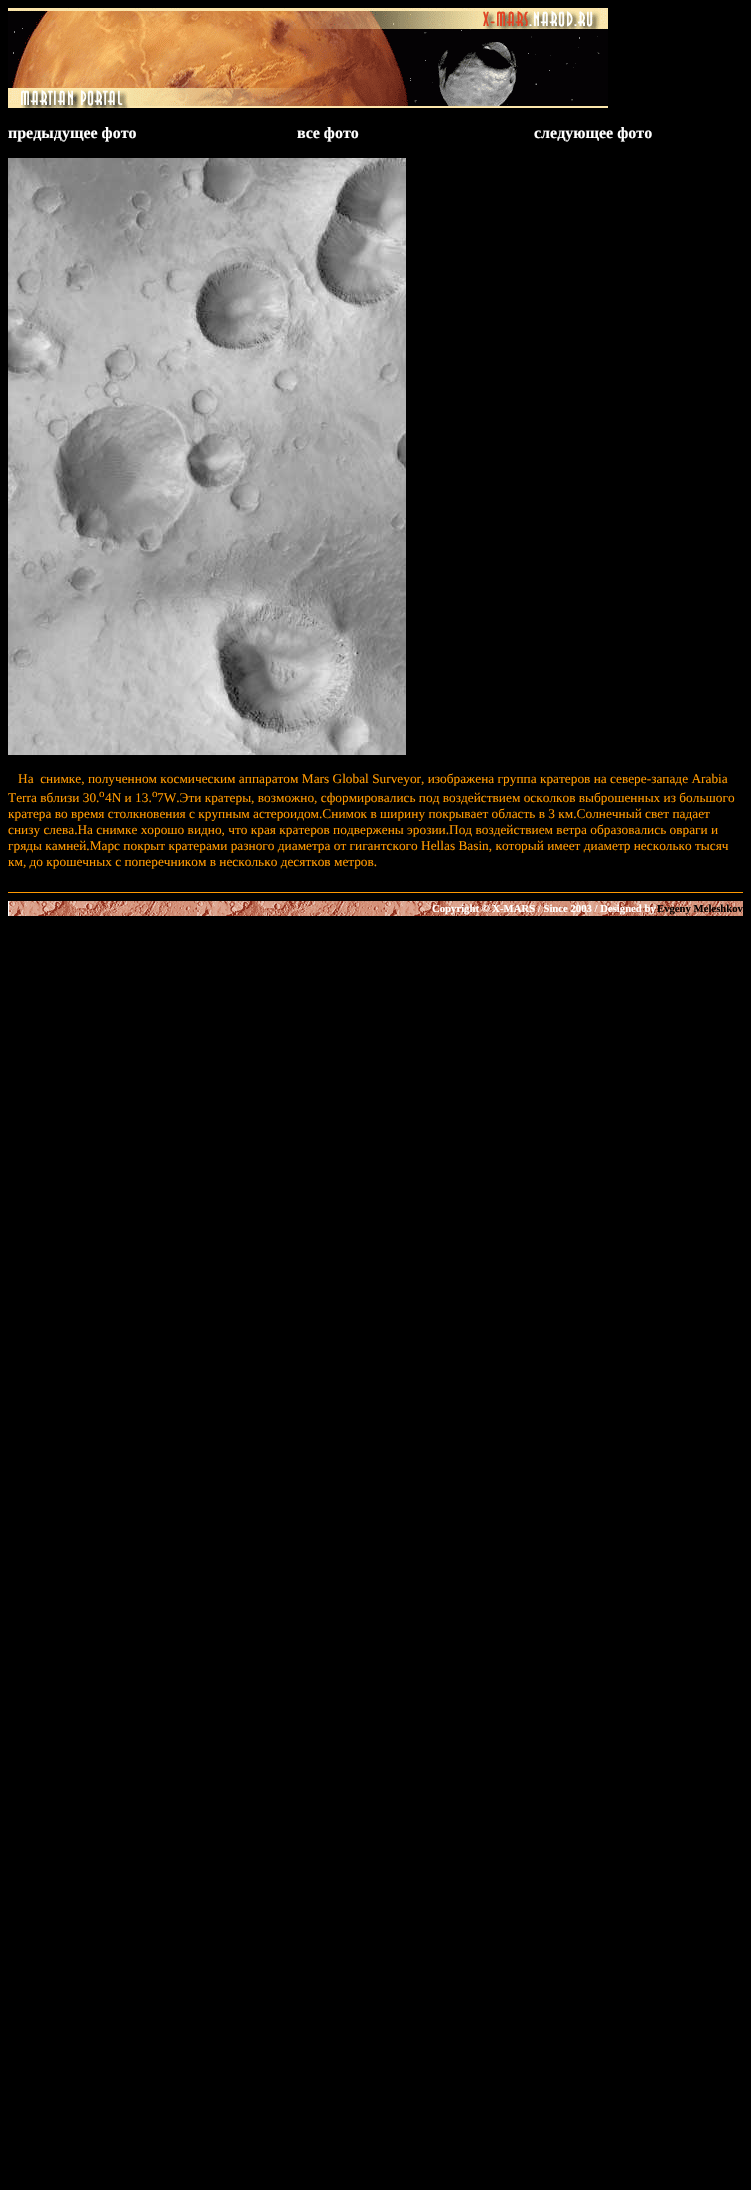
void draw(SkCanvas* canvas) {
    SkPaint paint;
    paint.setAntiAlias(true);
    canvas->clear(0xFF000000);
    canvas->drawImageRect(SkImages::DeferredFromEncodedData(SkData::MakeFromFileName("img1.png")), SkRect::MakeXYWH(8, 8, 600, 100), SkSamplingOptions());
    SkFont font1(fontMgr->matchFamilyStyle("Liberation Serif", SkFontStyle::Bold()), 16);
    font1.setSubpixel(true);
    paint.setColor(0xFFFFFFFF);
    canvas->drawString("предыдущее фото", 8, 138, font1, paint);
    canvas->drawString("все фото", 297, 138, font1, paint);
    canvas->drawString("следующее фото", 534, 138, font1, paint);
    canvas->drawImageRect(SkImages::DeferredFromEncodedData(SkData::MakeFromFileName("img2.png")), SkRect::MakeXYWH(8, 158, 398, 597), SkSamplingOptions());
    SkFont font2(fontMgr->matchFamilyStyle("Liberation Serif", SkFontStyle::Normal()), 13.33f);
    font2.setSubpixel(true);
    paint.setColor(0xFFFF9900);
    canvas->drawString("На  снимке, полученном космическим аппаратом Mars Global Surveyor, изображена группа кратеров на севере-западе Arabia", 18, 783, font2, paint);
    canvas->drawString("Terra вблизи 30.", 8, 802, font2, paint);
    SkFont font3(fontMgr->matchFamilyStyle("Liberation Serif", SkFontStyle::Normal()), 11);
    font3.setSubpixel(true);
    canvas->drawString("о", 99, 797, font3, paint);
    canvas->drawString("4N и 13.", 105, 802, font2, paint);
    canvas->drawString("о", 152, 797, font3, paint);
    canvas->drawString("7W.Эти кратеры, возможно, сформировались под воздействием осколков выброшенных из большого", 157, 802, font2, paint);
    canvas->drawString("кратера во время столкновения с крупным астероидом.Снимок в ширину покрывает область в 3 км.Солнечный свет падает", 8, 818, font2, paint);
    canvas->drawString("снизу слева.На снимке хорошо видно, что края кратеров подвержены эрозии.Под воздействием ветра образовались овраги и", 8, 834, font2, paint);
    canvas->drawString("гряды камней.Марс покрыт кратерами разного диаметра от гигантского Hellas Basin, который имеет диаметр несколько тысяч", 8, 850, font2, paint);
    canvas->drawString("км, до крошечных с поперечником в несколько десятков метров.", 8, 866, font2, paint);
    canvas->drawRect(SkRect::MakeXYWH(8, 892, 735, 1), paint);
    paint.setColor(0xFFFFFFFF);
    canvas->drawRect(SkRect::MakeXYWH(8, 901, 1, 15), paint);
    canvas->drawImageRect(SkImages::DeferredFromEncodedData(SkData::MakeFromFileName("img3.png")), SkRect::MakeXYWH(9, 901, 734, 15), SkSamplingOptions());
    SkFont font4(fontMgr->matchFamilyStyle("Liberation Serif", SkFontStyle::Bold()), 10.7f);
    font4.setSubpixel(true);
    canvas->drawString("Copyright © X-MARS / Since 2003 / Designed by", 432, 912, font4, paint);
    paint.setColor(0xFF000000);
    canvas->drawString("Evgeny Meleshkov", 657, 912, font4, paint);
}
